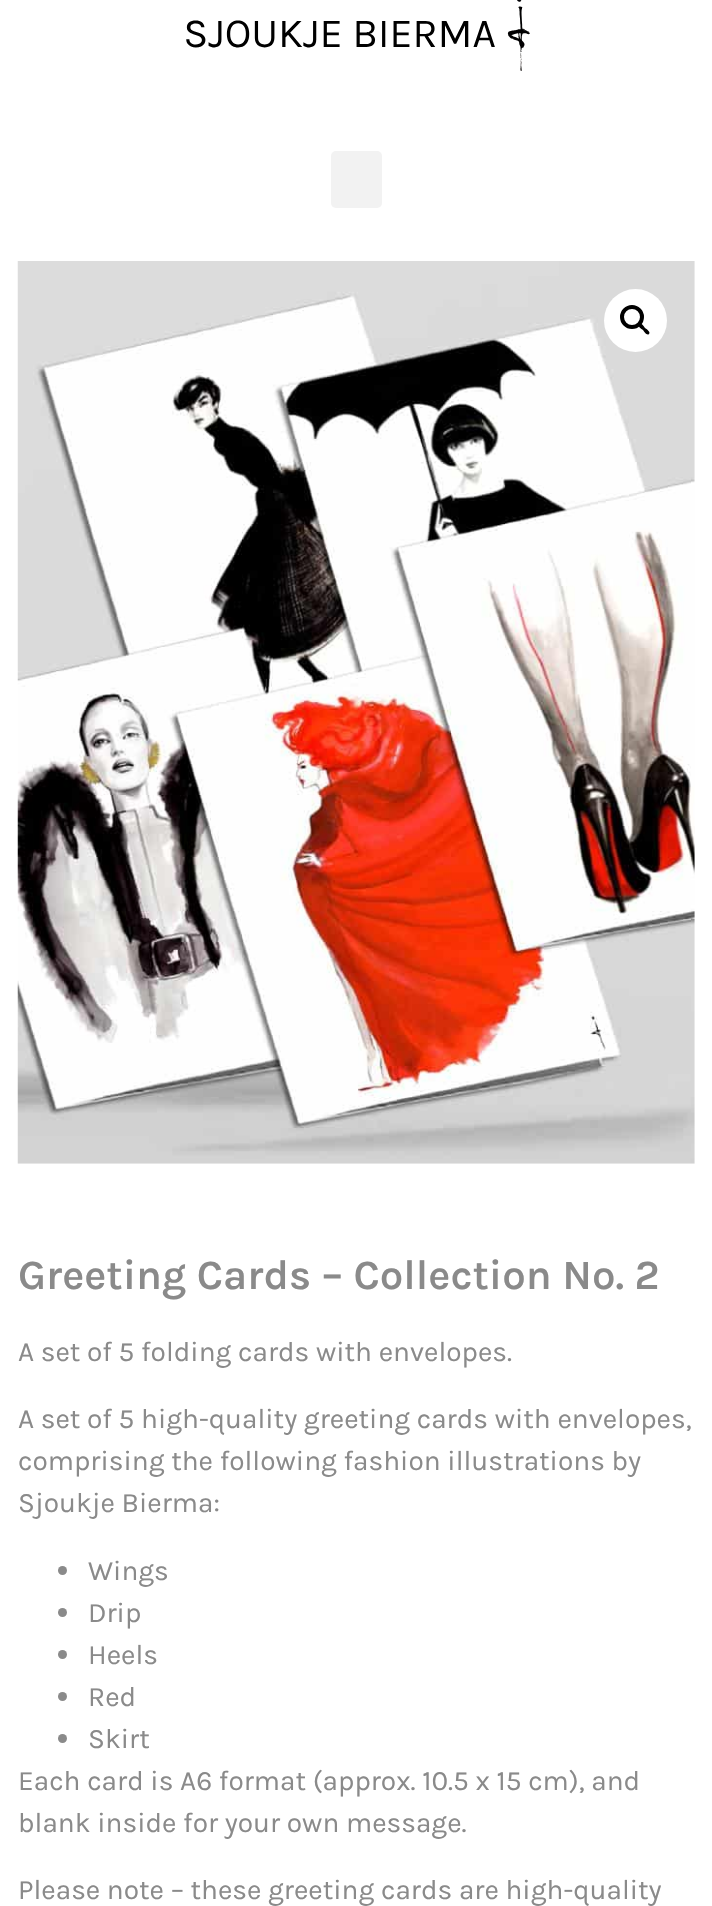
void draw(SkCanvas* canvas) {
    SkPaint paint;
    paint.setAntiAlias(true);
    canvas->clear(0xFFFFFFFF);
    canvas->drawImageRect(SkImages::DeferredFromEncodedData(SkData::MakeFromFileName("img1.png")), SkRect::MakeXYWH(186, 0, 344, 71), SkSamplingOptions());
    paint.setColor(0xFFF2F2F2);
    canvas->drawRoundRect(SkRect::MakeXYWH(331, 151, 51, 57), 5, 5, paint);
    canvas->drawImageRect(SkImages::DeferredFromEncodedData(SkData::MakeFromFileName("img2.png")), SkRect::MakeXYWH(17, 261, 678, 903), SkSamplingOptions());
    paint.setColor(0xFFFFFFFF);
    canvas->drawCircle(635.5f, 320.5f, 31.5f, paint);
    paint.setStyle(SkPaint::kStroke_Style);
    paint.setStrokeWidth(4);
    paint.setColor(0xFF000000);
    canvas->drawCircle(632, 317, 10, paint);
    paint.setStyle(SkPaint::kFill_Style);
    canvas->drawPath(SkPathBuilder().moveTo(639, 324).cubicTo(641, 322, 644, 326.5f, 645, 328).cubicTo(646.5f, 329, 651, 332, 649, 334).cubicTo(647, 336, 644, 331.5f, 643, 330).cubicTo(641.5f, 329, 637, 326, 639, 324).close().detach(), paint);
    SkFont font1(fontMgr->matchFamilyStyle("Karla", SkFontStyle(600, SkFontStyle::kNormal_Width, SkFontStyle::kUpright_Slant)), 42);
    font1.setSubpixel(true);
    paint.setColor(0xFF8A8A8A);
    canvas->drawString("Greeting Cards – Collection No. 2", 18, 1289, font1, paint);
    SkFont font2(fontMgr->matchFamilyStyle("Karla", SkFontStyle::Normal()), 28);
    font2.setSubpixel(true);
    canvas->drawString("A set of 5 folding cards with envelopes.", 18, 1361, font2, paint);
    canvas->drawString("A set of 5 high-quality greeting cards with envelopes,", 18, 1428, font2, paint);
    canvas->drawString("comprising the following fashion illustrations by", 18, 1470, font2, paint);
    canvas->drawString("Sjoukje Bierma:", 18, 1512, font2, paint);
    canvas->drawCircle(62.5f, 1570.5f, 4.5f, paint);
    canvas->drawString("Wings", 88, 1580, font2, paint);
    canvas->drawCircle(62.5f, 1612.5f, 4.5f, paint);
    canvas->drawString("Drip", 88, 1622, font2, paint);
    canvas->drawCircle(62.5f, 1654.5f, 4.5f, paint);
    canvas->drawString("Heels", 88, 1664, font2, paint);
    canvas->drawCircle(62.5f, 1696.5f, 4.5f, paint);
    canvas->drawString("Red", 88, 1706, font2, paint);
    canvas->drawCircle(62.5f, 1738.5f, 4.5f, paint);
    canvas->drawString("Skirt", 88, 1748, font2, paint);
    canvas->drawString("Each card is A6 format (approx. 10.5 x 15 cm), and", 18, 1790, font2, paint);
    canvas->drawString("blank inside for your own message.", 18, 1832, font2, paint);
    canvas->drawString("Please note – these greeting cards are high-quality", 18, 1899, font2, paint);
}
